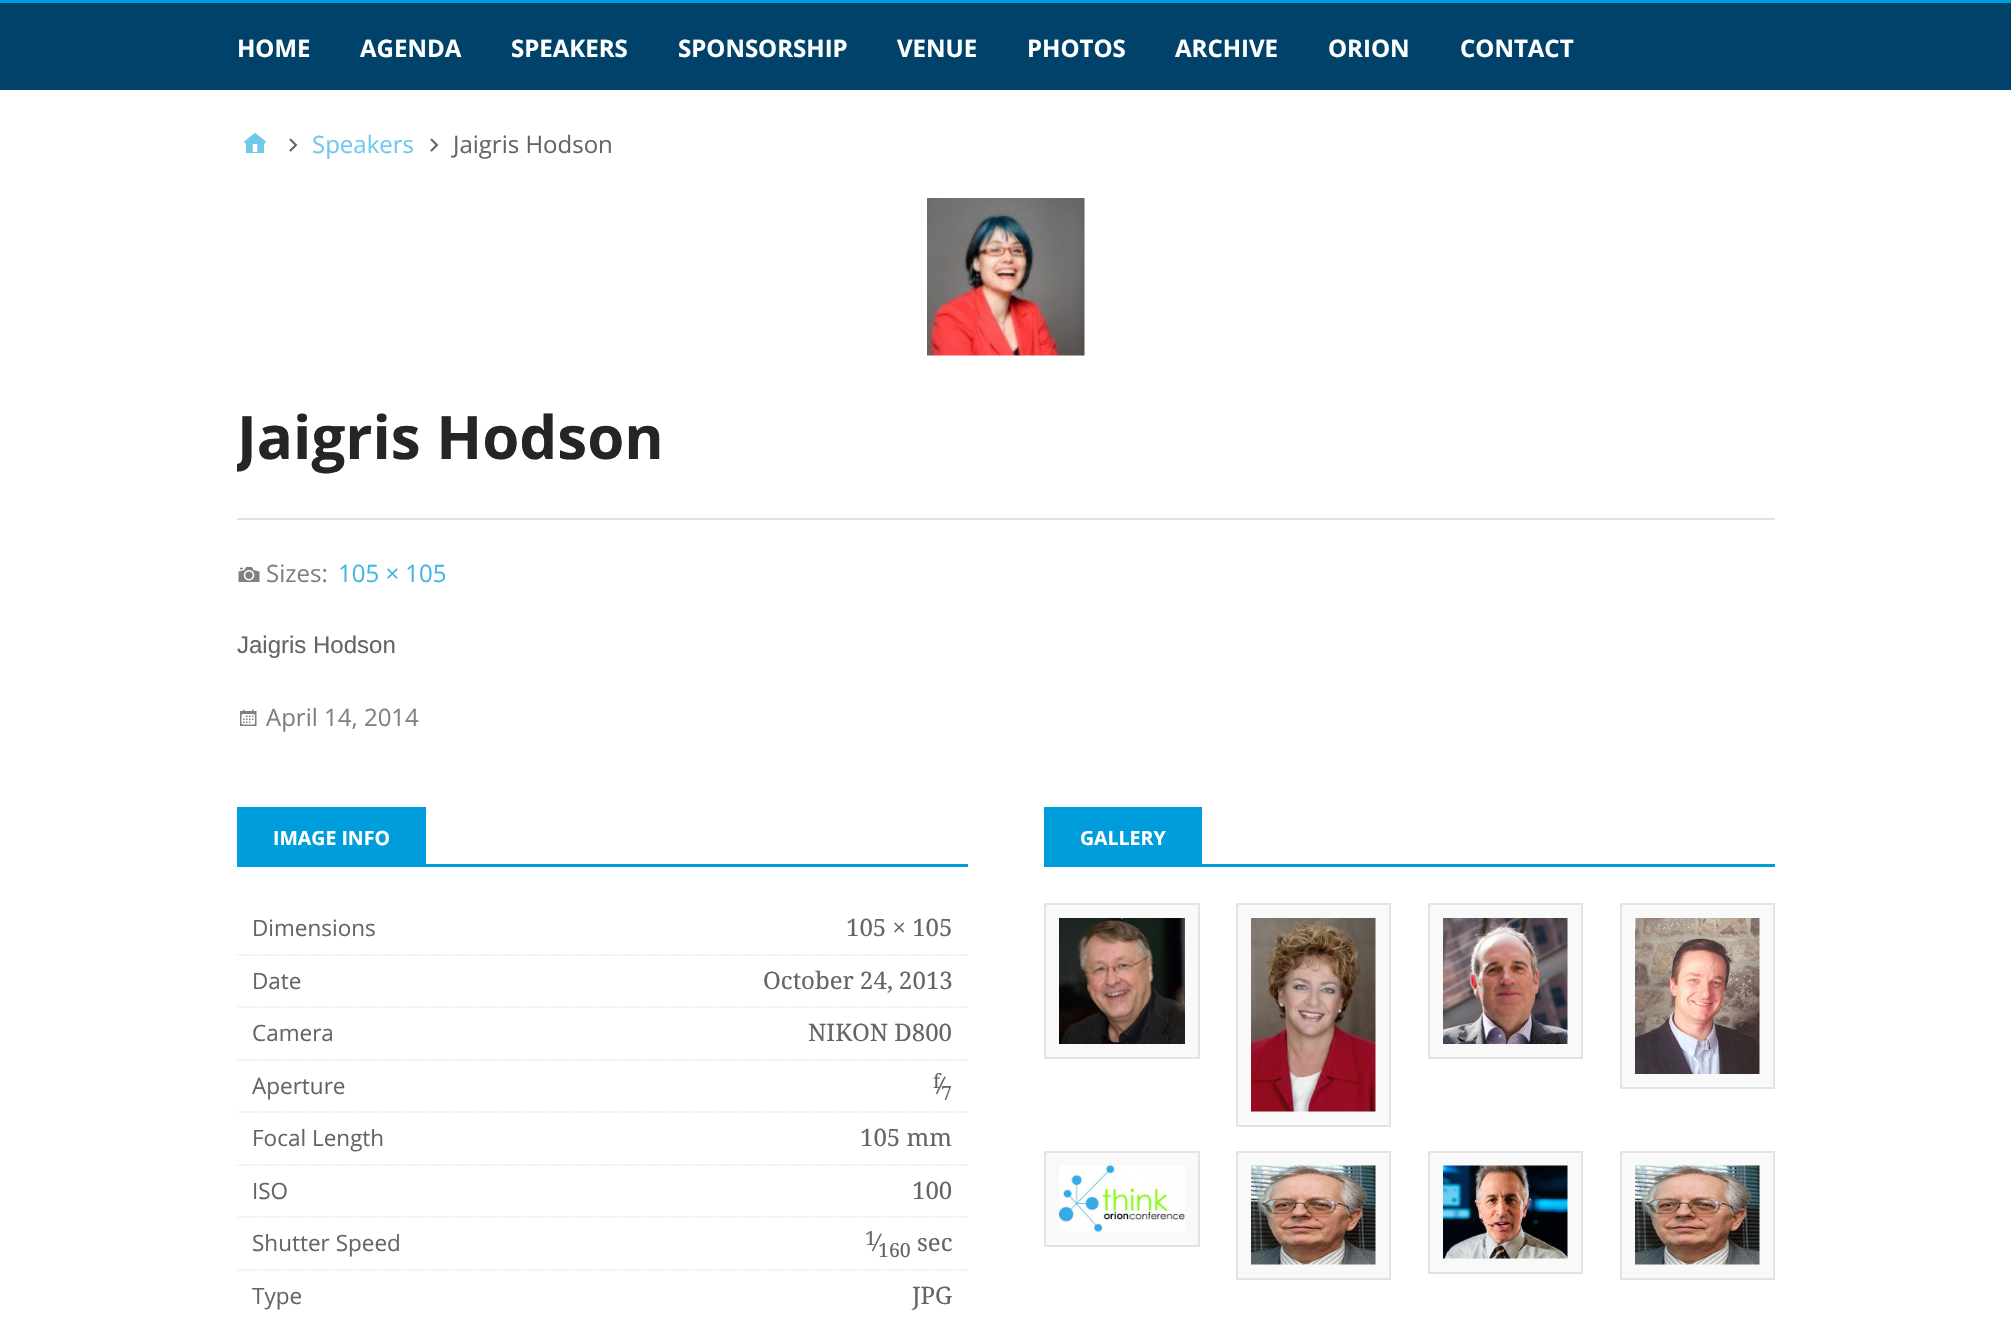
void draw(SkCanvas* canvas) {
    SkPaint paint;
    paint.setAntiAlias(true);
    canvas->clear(0xFFFFFFFF);
    paint.setColor(0xFF009DDC);
    canvas->drawRect(SkRect::MakeXYWH(0, 0, 2011, 3), paint);
    paint.setColor(0xFF01426A);
    canvas->drawRect(SkRect::MakeXYWH(0, 3, 2011, 87), paint);
    SkFont font1(fontMgr->matchFamilyStyle("Open Sans", SkFontStyle::Bold()), 24);
    font1.setSubpixel(true);
    paint.setColor(0xFFFFFFFF);
    canvas->drawString("HOME", 237, 57, font1, paint);
    canvas->drawString("AGENDA", 360, 57, font1, paint);
    canvas->drawString("SPEAKERS", 511, 57, font1, paint);
    canvas->drawString("SPONSORSHIP", 678, 57, font1, paint);
    canvas->drawString("VENUE", 897, 57, font1, paint);
    canvas->drawString("PHOTOS", 1027, 57, font1, paint);
    canvas->drawString("ARCHIVE", 1175, 57, font1, paint);
    canvas->drawString("ORION", 1328, 57, font1, paint);
    canvas->drawString("CONTACT", 1460, 57, font1, paint);
    canvas->drawImageRect(SkImages::DeferredFromEncodedData(SkData::MakeFromFileName("img1.png")), SkRect::MakeXYWH(243, 132, 24, 21), SkSamplingOptions());
    canvas->drawImageRect(SkImages::DeferredFromEncodedData(SkData::MakeFromFileName("img2.png")), SkRect::MakeXYWH(289, 138, 9, 14), SkSamplingOptions());
    SkFont font2(fontMgr->matchFamilyStyle("Open Sans", SkFontStyle::Normal()), 24);
    font2.setSubpixel(true);
    paint.setColor(0xFF70C8EC);
    canvas->drawString("Speakers", 312, 153, font2, paint);
    canvas->drawImageRect(SkImages::DeferredFromEncodedData(SkData::MakeFromFileName("img2.png")), SkRect::MakeXYWH(430, 138, 9, 14), SkSamplingOptions());
    paint.setColor(0xFF656565);
    canvas->drawString("Jaigris Hodson", 453, 153, font2, paint);
    canvas->drawImageRect(SkImages::DeferredFromEncodedData(SkData::MakeFromFileName("img3.png")), SkRect::MakeXYWH(927, 198, 158, 158), SkSamplingOptions());
    paint.setColor(0xFFE3E3E3);
    canvas->drawRect(SkRect::MakeXYWH(237, 518, 1538, 2), paint);
    canvas->save();
    canvas->clipRect(SkRect::MakeXYWH(237, 198, 1538, 573));
    SkFont font3(fontMgr->matchFamilyStyle("Open Sans", SkFontStyle::Bold()), 60);
    font3.setSubpixel(true);
    paint.setColor(0xFF252525);
    canvas->drawString("Jaigris Hodson", 237, 459, font3, paint);
    canvas->restore();
    canvas->drawImageRect(SkImages::DeferredFromEncodedData(SkData::MakeFromFileName("img4.png")), SkRect::MakeXYWH(238, 567, 22, 15), SkSamplingOptions());
    paint.setColor(0xFF808080);
    canvas->drawString("Sizes:", 266, 582, font2, paint);
    paint.setColor(0xFF40B6E5);
    canvas->drawString("105 × 105", 338, 582, font2, paint);
    SkFont font4(fontMgr->matchFamilyStyle("Liberation Sans", SkFontStyle::Normal()), 24);
    font4.setSubpixel(true);
    paint.setColor(0xFF656565);
    canvas->drawString("Jaigris Hodson", 237, 653, font4, paint);
    canvas->drawImageRect(SkImages::DeferredFromEncodedData(SkData::MakeFromFileName("img5.png")), SkRect::MakeXYWH(240, 709, 17, 17), SkSamplingOptions());
    paint.setColor(0xFF808080);
    canvas->drawString("April 14, 2014", 266, 726, font2, paint);
    paint.setColor(0xFF009DDC);
    canvas->drawRect(SkRect::MakeXYWH(237, 864, 731, 3), paint);
    canvas->drawRect(SkRect::MakeXYWH(237, 807, 189, 57), paint);
    SkFont font5(fontMgr->matchFamilyStyle("Open Sans", SkFontStyle::Bold()), 19.5f);
    font5.setSubpixel(true);
    paint.setColor(0xFFFFFFFF);
    canvas->drawString("IMAGE INFO", 273, 845, font5, paint);
    paint.setStyle(SkPaint::kStroke_Style);
    paint.setStrokeWidth(1.5f);
    paint.setColor(0xFFE3E3E3);
    paint.setPathEffect(SkDashPathEffect::Make({{1.5f, 1.5f}}, 0));
    canvas->drawPath(SkPathBuilder().moveTo(237, 955).lineTo(967.5f, 955).detach(), paint);
    paint.setPathEffect(nullptr);
    SkFont font6(fontMgr->matchFamilyStyle("Open Sans", SkFontStyle::Normal()), 22.5f);
    font6.setSubpixel(true);
    paint.setStyle(SkPaint::kFill_Style);
    paint.setColor(0xFF656565);
    canvas->drawString("Dimensions", 252, 936, font6, paint);
    SkFont font7(fontMgr->matchFamilyStyle("Droid Serif", SkFontStyle::Normal()), 24);
    font7.setSubpixel(true);
    canvas->drawString("105 × 105", 846, 936, font7, paint);
    paint.setStyle(SkPaint::kStroke_Style);
    paint.setColor(0xFFE3E3E3);
    paint.setPathEffect(SkDashPathEffect::Make({{1.5f, 1.5f}}, 0));
    canvas->drawPath(SkPathBuilder().moveTo(237, 1007).lineTo(967.5f, 1007).detach(), paint);
    paint.setPathEffect(nullptr);
    paint.setStyle(SkPaint::kFill_Style);
    paint.setColor(0xFF656565);
    canvas->drawString("Date", 252, 989, font6, paint);
    canvas->drawString("October 24, 2013", 763, 989, font7, paint);
    paint.setStyle(SkPaint::kStroke_Style);
    paint.setColor(0xFFE3E3E3);
    paint.setPathEffect(SkDashPathEffect::Make({{1.5f, 1.5f}}, 0));
    canvas->drawPath(SkPathBuilder().moveTo(237, 1060).lineTo(967.5f, 1060).detach(), paint);
    paint.setPathEffect(nullptr);
    paint.setStyle(SkPaint::kFill_Style);
    paint.setColor(0xFF656565);
    canvas->drawString("Camera", 252, 1041, font6, paint);
    canvas->drawString("NIKON D800", 808, 1041, font7, paint);
    paint.setStyle(SkPaint::kStroke_Style);
    paint.setColor(0xFFE3E3E3);
    paint.setPathEffect(SkDashPathEffect::Make({{1.5f, 1.5f}}, 0));
    canvas->drawPath(SkPathBuilder().moveTo(237, 1112).lineTo(967.5f, 1112).detach(), paint);
    paint.setPathEffect(nullptr);
    paint.setStyle(SkPaint::kFill_Style);
    paint.setColor(0xFF656565);
    canvas->drawString("Aperture", 252, 1094, font6, paint);
    canvas->drawString("⁄", 940, 1094, font7, paint);
    SkFont font8(fontMgr->matchFamilyStyle("Droid Serif", SkFontStyle::Normal()), 19.5f);
    font8.setSubpixel(true);
    canvas->drawString("f", 933, 1088, font8, paint);
    canvas->drawString("7", 941, 1100, font8, paint);
    paint.setStyle(SkPaint::kStroke_Style);
    paint.setColor(0xFFE3E3E3);
    paint.setPathEffect(SkDashPathEffect::Make({{1.5f, 1.5f}}, 0));
    canvas->drawPath(SkPathBuilder().moveTo(237, 1165).lineTo(967.5f, 1165).detach(), paint);
    paint.setPathEffect(nullptr);
    paint.setStyle(SkPaint::kFill_Style);
    paint.setColor(0xFF656565);
    canvas->drawString("Focal Length", 252, 1146, font6, paint);
    canvas->drawString("105 mm", 860, 1146, font7, paint);
    paint.setStyle(SkPaint::kStroke_Style);
    paint.setColor(0xFFE3E3E3);
    paint.setPathEffect(SkDashPathEffect::Make({{1.5f, 1.5f}}, 0));
    canvas->drawPath(SkPathBuilder().moveTo(237, 1217).lineTo(967.5f, 1217).detach(), paint);
    paint.setPathEffect(nullptr);
    paint.setStyle(SkPaint::kFill_Style);
    paint.setColor(0xFF656565);
    canvas->drawString("ISO", 252, 1199, font6, paint);
    canvas->drawString("100", 912, 1199, font7, paint);
    paint.setStyle(SkPaint::kStroke_Style);
    paint.setColor(0xFFE3E3E3);
    paint.setPathEffect(SkDashPathEffect::Make({{1.5f, 1.5f}}, 0));
    canvas->drawPath(SkPathBuilder().moveTo(237, 1270).lineTo(967.5f, 1270).detach(), paint);
    paint.setPathEffect(nullptr);
    paint.setStyle(SkPaint::kFill_Style);
    paint.setColor(0xFF656565);
    canvas->drawString("Shutter Speed", 252, 1251, font6, paint);
    canvas->drawString("⁄", 876, 1251, font7, paint);
    canvas->drawString("1", 865, 1245, font8, paint);
    canvas->drawString("160", 878, 1257, font8, paint);
    canvas->drawString("sec", 917, 1251, font7, paint);
    canvas->drawString("Type", 252, 1304, font6, paint);
    canvas->drawString("JPG", 912, 1304, font7, paint);
    paint.setColor(0xFF009DDC);
    canvas->drawRect(SkRect::MakeXYWH(1044, 864, 731, 3), paint);
    canvas->drawRect(SkRect::MakeXYWH(1044, 807, 158, 57), paint);
    paint.setColor(0xFFFFFFFF);
    canvas->drawString("GALLERY", 1080, 845, font5, paint);
    paint.setColor(0xFFF9F9F9);
    canvas->drawRect(SkRect::MakeXYWH(1045, 904, 154, 154), paint);
    paint.setStyle(SkPaint::kStroke_Style);
    paint.setStrokeWidth(2);
    paint.setColor(0xFFE3E3E3);
    canvas->drawRect(SkRect::MakeXYWH(1045, 904, 154, 154), paint);
    canvas->drawImageRect(SkImages::DeferredFromEncodedData(SkData::MakeFromFileName("img6.png")), SkRect::MakeXYWH(1059, 918, 126, 126), SkSamplingOptions());
    paint.setStyle(SkPaint::kFill_Style);
    paint.setColor(0xFFF9F9F9);
    canvas->drawRect(SkRect::MakeXYWH(1237, 904, 153, 222), paint);
    paint.setStyle(SkPaint::kStroke_Style);
    paint.setColor(0xFFE3E3E3);
    canvas->drawRect(SkRect::MakeXYWH(1237, 904, 153, 222), paint);
    canvas->drawImageRect(SkImages::DeferredFromEncodedData(SkData::MakeFromFileName("img7.png")), SkRect::MakeXYWH(1251, 918, 125, 194), SkSamplingOptions());
    paint.setStyle(SkPaint::kFill_Style);
    paint.setColor(0xFFF9F9F9);
    canvas->drawRect(SkRect::MakeXYWH(1429, 904, 153, 154), paint);
    paint.setStyle(SkPaint::kStroke_Style);
    paint.setColor(0xFFE3E3E3);
    canvas->drawRect(SkRect::MakeXYWH(1429, 904, 153, 154), paint);
    canvas->drawImageRect(SkImages::DeferredFromEncodedData(SkData::MakeFromFileName("img8.png")), SkRect::MakeXYWH(1443, 918, 125, 126), SkSamplingOptions());
    paint.setStyle(SkPaint::kFill_Style);
    paint.setColor(0xFFF9F9F9);
    canvas->drawRect(SkRect::MakeXYWH(1621, 904, 153, 184), paint);
    paint.setStyle(SkPaint::kStroke_Style);
    paint.setColor(0xFFE3E3E3);
    canvas->drawRect(SkRect::MakeXYWH(1621, 904, 153, 184), paint);
    canvas->drawImageRect(SkImages::DeferredFromEncodedData(SkData::MakeFromFileName("img9.png")), SkRect::MakeXYWH(1635, 918, 125, 156), SkSamplingOptions());
    paint.setStyle(SkPaint::kFill_Style);
    paint.setColor(0xFFF9F9F9);
    canvas->drawRect(SkRect::MakeXYWH(1045, 1152, 154, 94), paint);
    paint.setStyle(SkPaint::kStroke_Style);
    paint.setColor(0xFFE3E3E3);
    canvas->drawRect(SkRect::MakeXYWH(1045, 1152, 154, 94), paint);
    canvas->drawImageRect(SkImages::DeferredFromEncodedData(SkData::MakeFromFileName("img10.png")), SkRect::MakeXYWH(1059, 1165, 126, 67), SkSamplingOptions());
    paint.setStyle(SkPaint::kFill_Style);
    paint.setColor(0xFFF9F9F9);
    canvas->drawRect(SkRect::MakeXYWH(1237, 1152, 153, 127), paint);
    paint.setStyle(SkPaint::kStroke_Style);
    paint.setColor(0xFFE3E3E3);
    canvas->drawRect(SkRect::MakeXYWH(1237, 1152, 153, 127), paint);
    canvas->drawImageRect(SkImages::DeferredFromEncodedData(SkData::MakeFromFileName("img11.png")), SkRect::MakeXYWH(1251, 1165, 125, 100), SkSamplingOptions());
    paint.setStyle(SkPaint::kFill_Style);
    paint.setColor(0xFFF9F9F9);
    canvas->drawRect(SkRect::MakeXYWH(1429, 1152, 153, 121), paint);
    paint.setStyle(SkPaint::kStroke_Style);
    paint.setColor(0xFFE3E3E3);
    canvas->drawRect(SkRect::MakeXYWH(1429, 1152, 153, 121), paint);
    canvas->drawImageRect(SkImages::DeferredFromEncodedData(SkData::MakeFromFileName("img12.png")), SkRect::MakeXYWH(1443, 1165, 125, 94), SkSamplingOptions());
    paint.setStyle(SkPaint::kFill_Style);
    paint.setColor(0xFFF9F9F9);
    canvas->drawRect(SkRect::MakeXYWH(1621, 1152, 153, 127), paint);
    paint.setStyle(SkPaint::kStroke_Style);
    paint.setColor(0xFFE3E3E3);
    canvas->drawRect(SkRect::MakeXYWH(1621, 1152, 153, 127), paint);
    canvas->drawImageRect(SkImages::DeferredFromEncodedData(SkData::MakeFromFileName("img11.png")), SkRect::MakeXYWH(1635, 1165, 125, 100), SkSamplingOptions());
}
